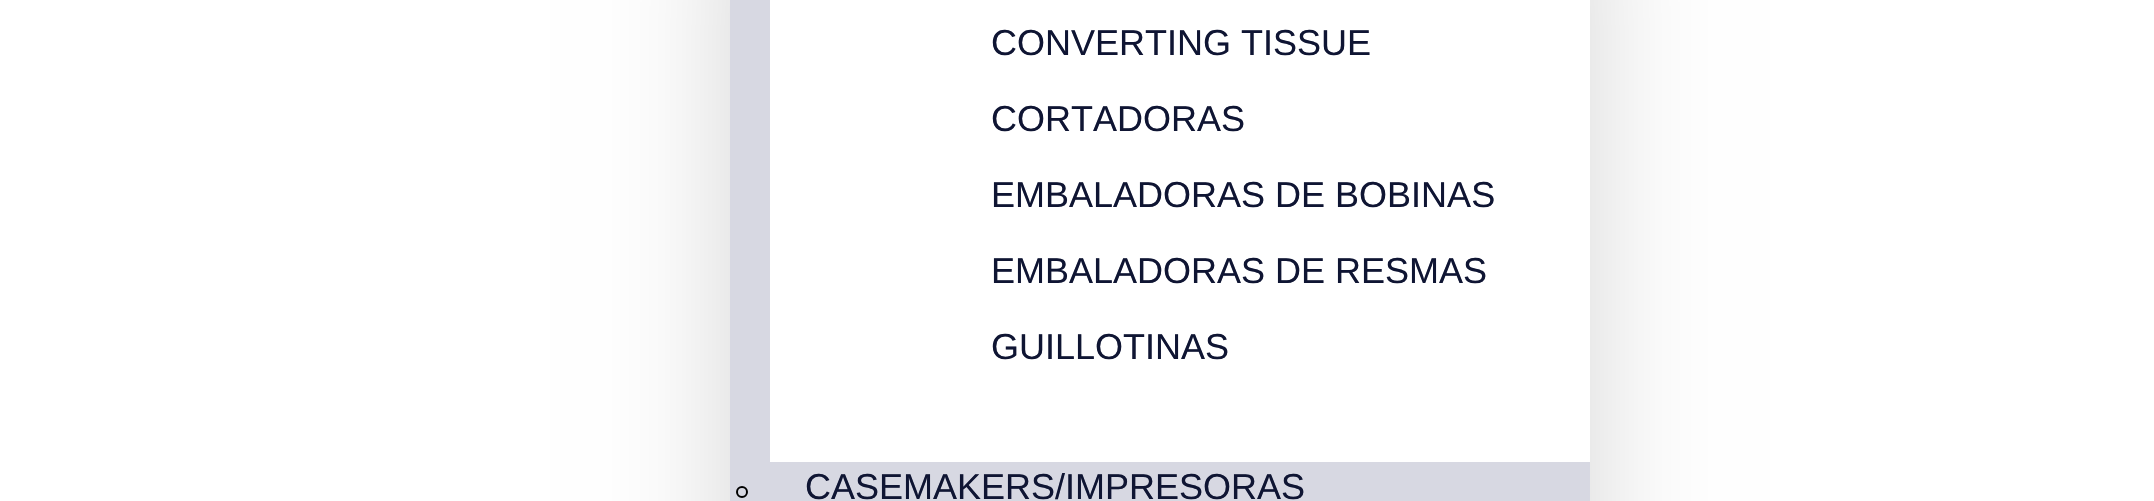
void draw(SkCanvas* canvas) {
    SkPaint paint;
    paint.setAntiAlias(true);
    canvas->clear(0xFFFFFFFF);
    paint.setColor(0x29000000);
    paint.setMaskFilter(SkMaskFilter::MakeBlur(kNormal_SkBlurStyle, 60));
    canvas->drawRect(SkRect::MakeXYWH(730, -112, 860, 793), paint);
    paint.setMaskFilter(nullptr);
    paint.setColor(0xFFD7D8E2);
    canvas->drawRect(SkRect::MakeXYWH(730, 0, 860, 501), paint);
    paint.setColor(0xFFFFFFFF);
    canvas->drawRect(SkRect::MakeXYWH(770, 0, 820, 462), paint);
    SkFont font1(fontMgr->matchFamilyStyle("Liberation Sans", SkFontStyle::Normal()), 36);
    font1.setSubpixel(true);
    paint.setColor(0xFF0F1533);
    canvas->drawString("CONVERTING TISSUE", 991, 55, font1, paint);
    canvas->drawString("CORTADORAS", 991, 131, font1, paint);
    canvas->drawString("EMBALADORAS DE BOBINAS", 991, 207, font1, paint);
    canvas->drawString("EMBALADORAS DE RESMAS", 991, 283, font1, paint);
    canvas->drawString("GUILLOTINAS", 991, 359, font1, paint);
    paint.setStyle(SkPaint::kStroke_Style);
    paint.setStrokeWidth(2);
    paint.setColor(0xFF000000);
    canvas->drawCircle(742, 492, 5, paint);
    paint.setStyle(SkPaint::kFill_Style);
    paint.setColor(0xFF0F1533);
    canvas->drawString("CASEMAKERS/IMPRESORAS", 805, 499, font1, paint);
}
